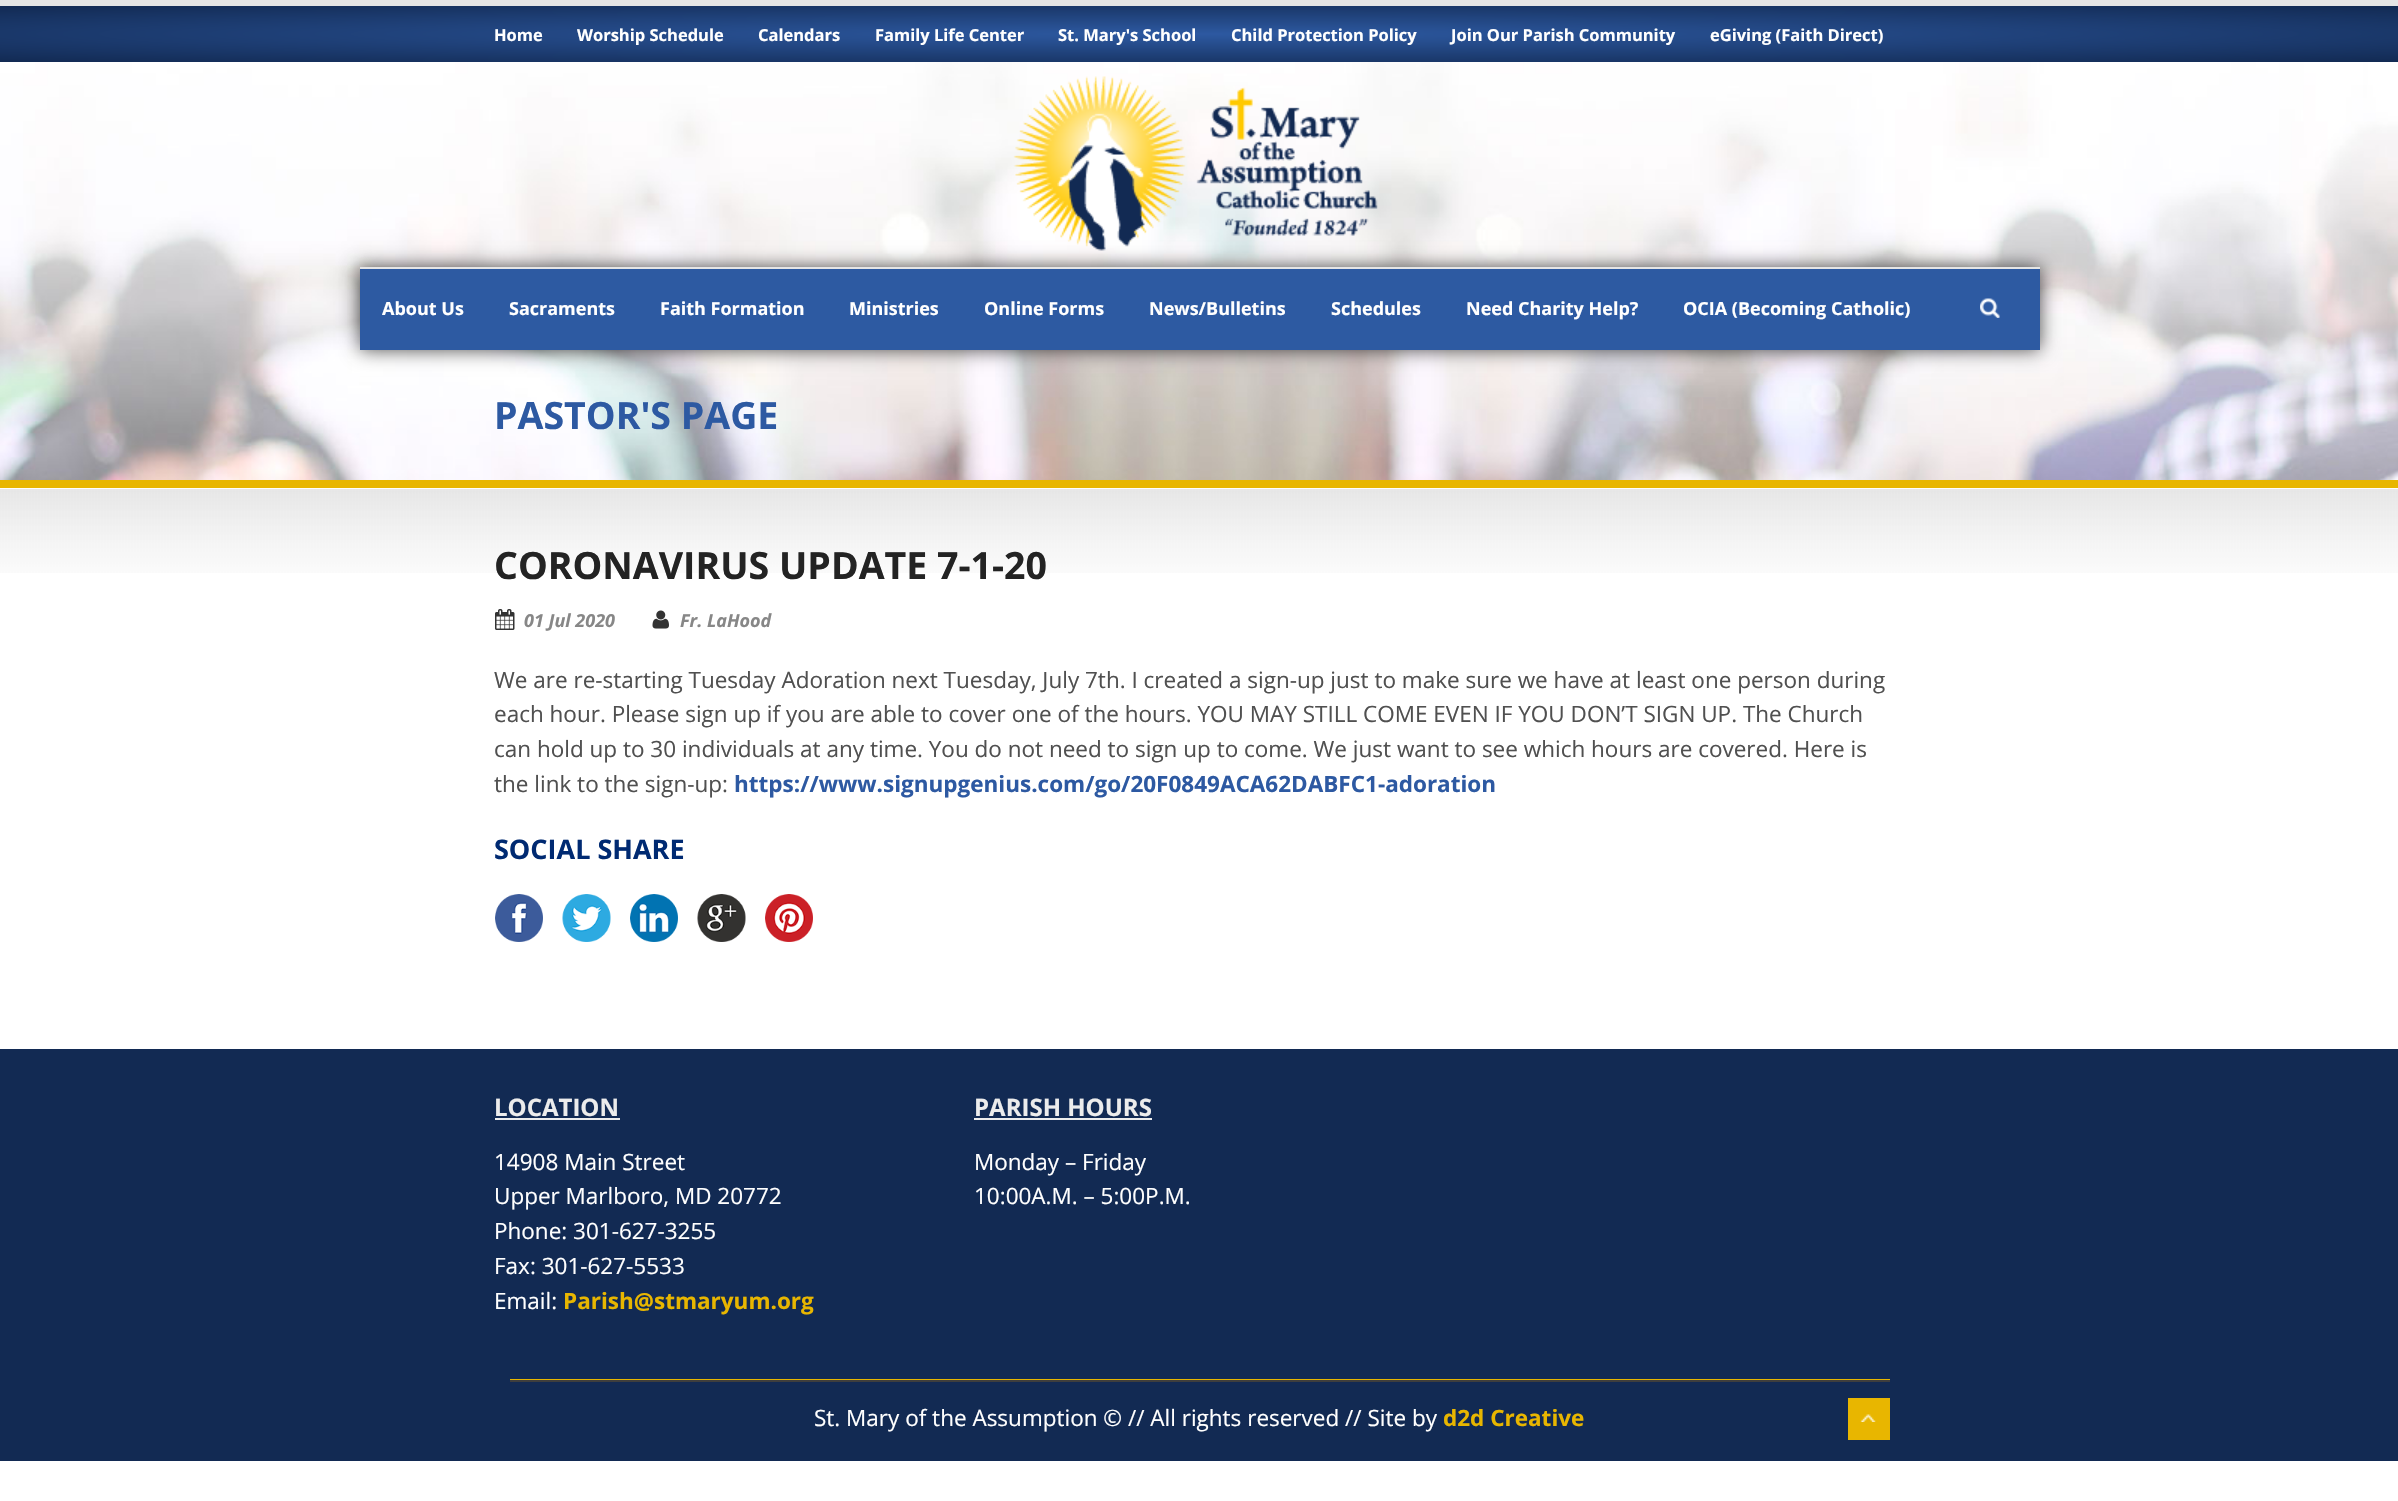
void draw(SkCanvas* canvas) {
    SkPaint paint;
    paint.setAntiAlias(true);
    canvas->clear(0xFFFFFFFF);
    {
        const SkColor colors[] = {0xFF2D59A1, 0xFF122A53};
        const float stops[] = {0, 1};
        SkMatrix m = SkMatrix::Translate(1199, 34).preScale(1696, 39);
        paint.setShader(SkGradientShader::MakeRadial({0, 0}, 1, colors, stops, 2, SkTileMode::kClamp, 0, &m));
        paint.setAlpha(255);
    }
    canvas->drawRect(SkRect::MakeXYWH(0, 6, 2398, 56), paint);
    paint.setShader(nullptr);
    paint.setColor(0xFFE5E5E5);
    canvas->drawRect(SkRect::MakeXYWH(0, 0, 2398, 6), paint);
    SkFont font1(fontMgr->matchFamilyStyle("Open Sans", SkFontStyle::Bold()), 16.5f);
    font1.setSubpixel(true);
    paint.setColor(0xFFFFFFFF);
    canvas->drawString("Home", 494, 41, font1, paint);
    canvas->drawString("Worship Schedule", 577, 41, font1, paint);
    canvas->drawString("Calendars", 758, 41, font1, paint);
    canvas->drawString("Family Life Center", 875, 41, font1, paint);
    canvas->drawString("St. Mary's School", 1058, 41, font1, paint);
    canvas->drawString("Child Protection Policy", 1231, 41, font1, paint);
    canvas->drawString("Join Our Parish Community", 1451, 41, font1, paint);
    canvas->drawString("eGiving (Faith Direct)", 1710, 41, font1, paint);
    canvas->drawImageRect(SkImages::DeferredFromEncodedData(SkData::MakeFromFileName("img1.png")), SkRect::MakeXYWH(0, 62, 2398, 418), SkSamplingOptions());
    canvas->drawImageRect(SkImages::DeferredFromEncodedData(SkData::MakeFromFileName("img2.png")), SkRect::MakeXYWH(1013, 76, 365, 175), SkSamplingOptions());
    paint.setColor(0xB3000000);
    paint.setMaskFilter(SkMaskFilter::MakeBlur(kNormal_SkBlurStyle, 9));
    canvas->drawRect(SkRect::MakeXYWH(360, 267, 1680, 83), paint);
    paint.setMaskFilter(nullptr);
    paint.setColor(0xFF2D5AA2);
    canvas->drawRect(SkRect::MakeXYWH(360, 269, 1680, 81), paint);
    paint.setColor(0xFFE5E5E5);
    canvas->drawRect(SkRect::MakeXYWH(360, 267, 1680, 2), paint);
    SkFont font2(fontMgr->matchFamilyStyle("Open Sans", SkFontStyle::Bold()), 18);
    font2.setSubpixel(true);
    paint.setColor(0xFFFFFFFF);
    canvas->drawString("About Us", 382, 315, font2, paint);
    canvas->drawString("Sacraments", 509, 315, font2, paint);
    canvas->drawString("Faith Formation", 660, 315, font2, paint);
    canvas->drawString("Ministries", 849, 315, font2, paint);
    canvas->drawString("Online Forms", 984, 315, font2, paint);
    canvas->drawString("News/Bulletins", 1149, 315, font2, paint);
    canvas->drawString("Schedules", 1331, 315, font2, paint);
    canvas->drawString("Need Charity Help?", 1466, 315, font2, paint);
    canvas->drawString("OCIA (Becoming Catholic)", 1683, 315, font2, paint);
    canvas->drawImageRect(SkImages::DeferredFromEncodedData(SkData::MakeFromFileName("img3.png")), SkRect::MakeXYWH(1980, 298, 20, 20), SkSamplingOptions());
    SkFont font3(fontMgr->matchFamilyStyle("Open Sans", SkFontStyle::Bold()), 37.5f);
    font3.setSubpixel(true);
    paint.setColor(0xFF2D59A2);
    canvas->drawString("PASTOR'S PAGE", 494, 429, font3, paint);
    paint.setColor(0xFFE8B600);
    canvas->drawRect(SkRect::MakeXYWH(0, 480, 2398, 8), paint);
    canvas->drawImageRect(SkImages::DeferredFromEncodedData(SkData::MakeFromFileName("img4.png")), SkRect::MakeXYWH(0, 489, 2398, 84), SkSamplingOptions());
    paint.setColor(0xFF232323);
    canvas->drawString("CORONAVIRUS UPDATE 7-1-20", 494, 579, font3, paint);
    canvas->drawImageRect(SkImages::DeferredFromEncodedData(SkData::MakeFromFileName("img5.png")), SkRect::MakeXYWH(495, 609, 20, 21), SkSamplingOptions());
    SkFont font4(fontMgr->matchFamilyStyle("Open Sans", SkFontStyle::BoldItalic()), 18);
    font4.setSubpixel(true);
    paint.setColor(0xFF878787);
    canvas->drawString("01 Jul 2020", 524, 627, font4, paint);
    canvas->drawImageRect(SkImages::DeferredFromEncodedData(SkData::MakeFromFileName("img6.png")), SkRect::MakeXYWH(652, 610, 17, 19), SkSamplingOptions());
    canvas->drawString("Fr. LaHood", 680, 627, font4, paint);
    SkFont font5(fontMgr->matchFamilyStyle("Open Sans", SkFontStyle::Normal()), 22.5f);
    font5.setSubpixel(true);
    paint.setColor(0xFF505050);
    canvas->drawString("We are re-starting Tuesday Adoration next Tuesday, July 7th. I created a sign-up just to make sure we have at least one person during", 494, 688, font5, paint);
    canvas->drawString("each hour. Please sign up if you are able to cover one of the hours. YOU MAY STILL COME EVEN IF YOU DON’T SIGN UP. The Church", 494, 722, font5, paint);
    canvas->drawString("can hold up to 30 individuals at any time. You do not need to sign up to come. We just want to see which hours are covered. Here is", 494, 757, font5, paint);
    canvas->drawString("the link to the sign-up:", 494, 792, font5, paint);
    SkFont font6(fontMgr->matchFamilyStyle("Open Sans", SkFontStyle::Bold()), 22.5f);
    font6.setSubpixel(true);
    paint.setColor(0xFF2D59A2);
    canvas->drawString("https://www.signupgenius.com/go/20F0849ACA62DABFC1-adoration", 734, 792, font6, paint);
    SkFont font7(fontMgr->matchFamilyStyle("Open Sans", SkFontStyle::Bold()), 27);
    font7.setSubpixel(true);
    paint.setColor(0xFF002A72);
    canvas->drawString("SOCIAL SHARE", 494, 859, font7, paint);
    canvas->drawImageRect(SkImages::DeferredFromEncodedData(SkData::MakeFromFileName("img7.png")), SkRect::MakeXYWH(495, 894, 48, 48), SkSamplingOptions());
    canvas->drawImageRect(SkImages::DeferredFromEncodedData(SkData::MakeFromFileName("img8.png")), SkRect::MakeXYWH(562, 894, 49, 48), SkSamplingOptions());
    canvas->drawImageRect(SkImages::DeferredFromEncodedData(SkData::MakeFromFileName("img9.png")), SkRect::MakeXYWH(630, 894, 48, 48), SkSamplingOptions());
    canvas->drawImageRect(SkImages::DeferredFromEncodedData(SkData::MakeFromFileName("img10.png")), SkRect::MakeXYWH(697, 894, 49, 48), SkSamplingOptions());
    canvas->drawImageRect(SkImages::DeferredFromEncodedData(SkData::MakeFromFileName("img11.png")), SkRect::MakeXYWH(765, 894, 48, 48), SkSamplingOptions());
    paint.setColor(0xFF122A53);
    canvas->drawRect(SkRect::MakeXYWH(0, 1049, 2398, 412), paint);
    SkFont font8(fontMgr->matchFamilyStyle("Open Sans", SkFontStyle::Bold()), 24);
    font8.setSubpixel(true);
    paint.setColor(0xFFECECEC);
    canvas->drawString("LOCATION", 494, 1116, font8, paint);
    canvas->drawRect(SkRect::MakeXYWH(495, 1118, 125, 2), paint);
    paint.setColor(0xFFFFFFFF);
    canvas->drawString("14908 Main Street", 494, 1170, font5, paint);
    canvas->drawString("Upper Marlboro, MD 20772", 494, 1204, font5, paint);
    canvas->drawString("Phone: 301-627-3255", 494, 1239, font5, paint);
    canvas->drawString("Fax: 301-627-5533", 494, 1274, font5, paint);
    canvas->drawString("Email:", 494, 1309, font5, paint);
    paint.setColor(0xFFE8B600);
    canvas->drawString("Parish@stmaryum.org", 563, 1309, font6, paint);
    paint.setColor(0xFFECECEC);
    canvas->drawString("PARISH HOURS", 974, 1116, font8, paint);
    canvas->drawRect(SkRect::MakeXYWH(974, 1118, 178, 2), paint);
    paint.setColor(0xFFFFFFFF);
    canvas->drawString("Monday – Friday", 974, 1170, font5, paint);
    canvas->drawString("10:00A.M. – 5:00P.M.", 974, 1204, font5, paint);
    paint.setColor(0xFFE8B600);
    canvas->drawRect(SkRect::MakeXYWH(510, 1379, 1380, 1), paint);
    paint.setColor(0xFF3E3E3E);
    canvas->drawRect(SkRect::MakeXYWH(510, 1380, 1380, 2), paint);
    paint.setColor(0xFFFFFFFF);
    canvas->drawString("St. Mary of the Assumption © // All rights reserved // Site by", 814, 1426, font5, paint);
    paint.setColor(0xFFE8B600);
    canvas->drawString("d2d Creative", 1443, 1426, font6, paint);
    canvas->drawRect(SkRect::MakeXYWH(1848, 1398, 42, 42), paint);
    canvas->drawImageRect(SkImages::DeferredFromEncodedData(SkData::MakeFromFileName("img12.png")), SkRect::MakeXYWH(1860, 1414, 16, 8), SkSamplingOptions());
}
